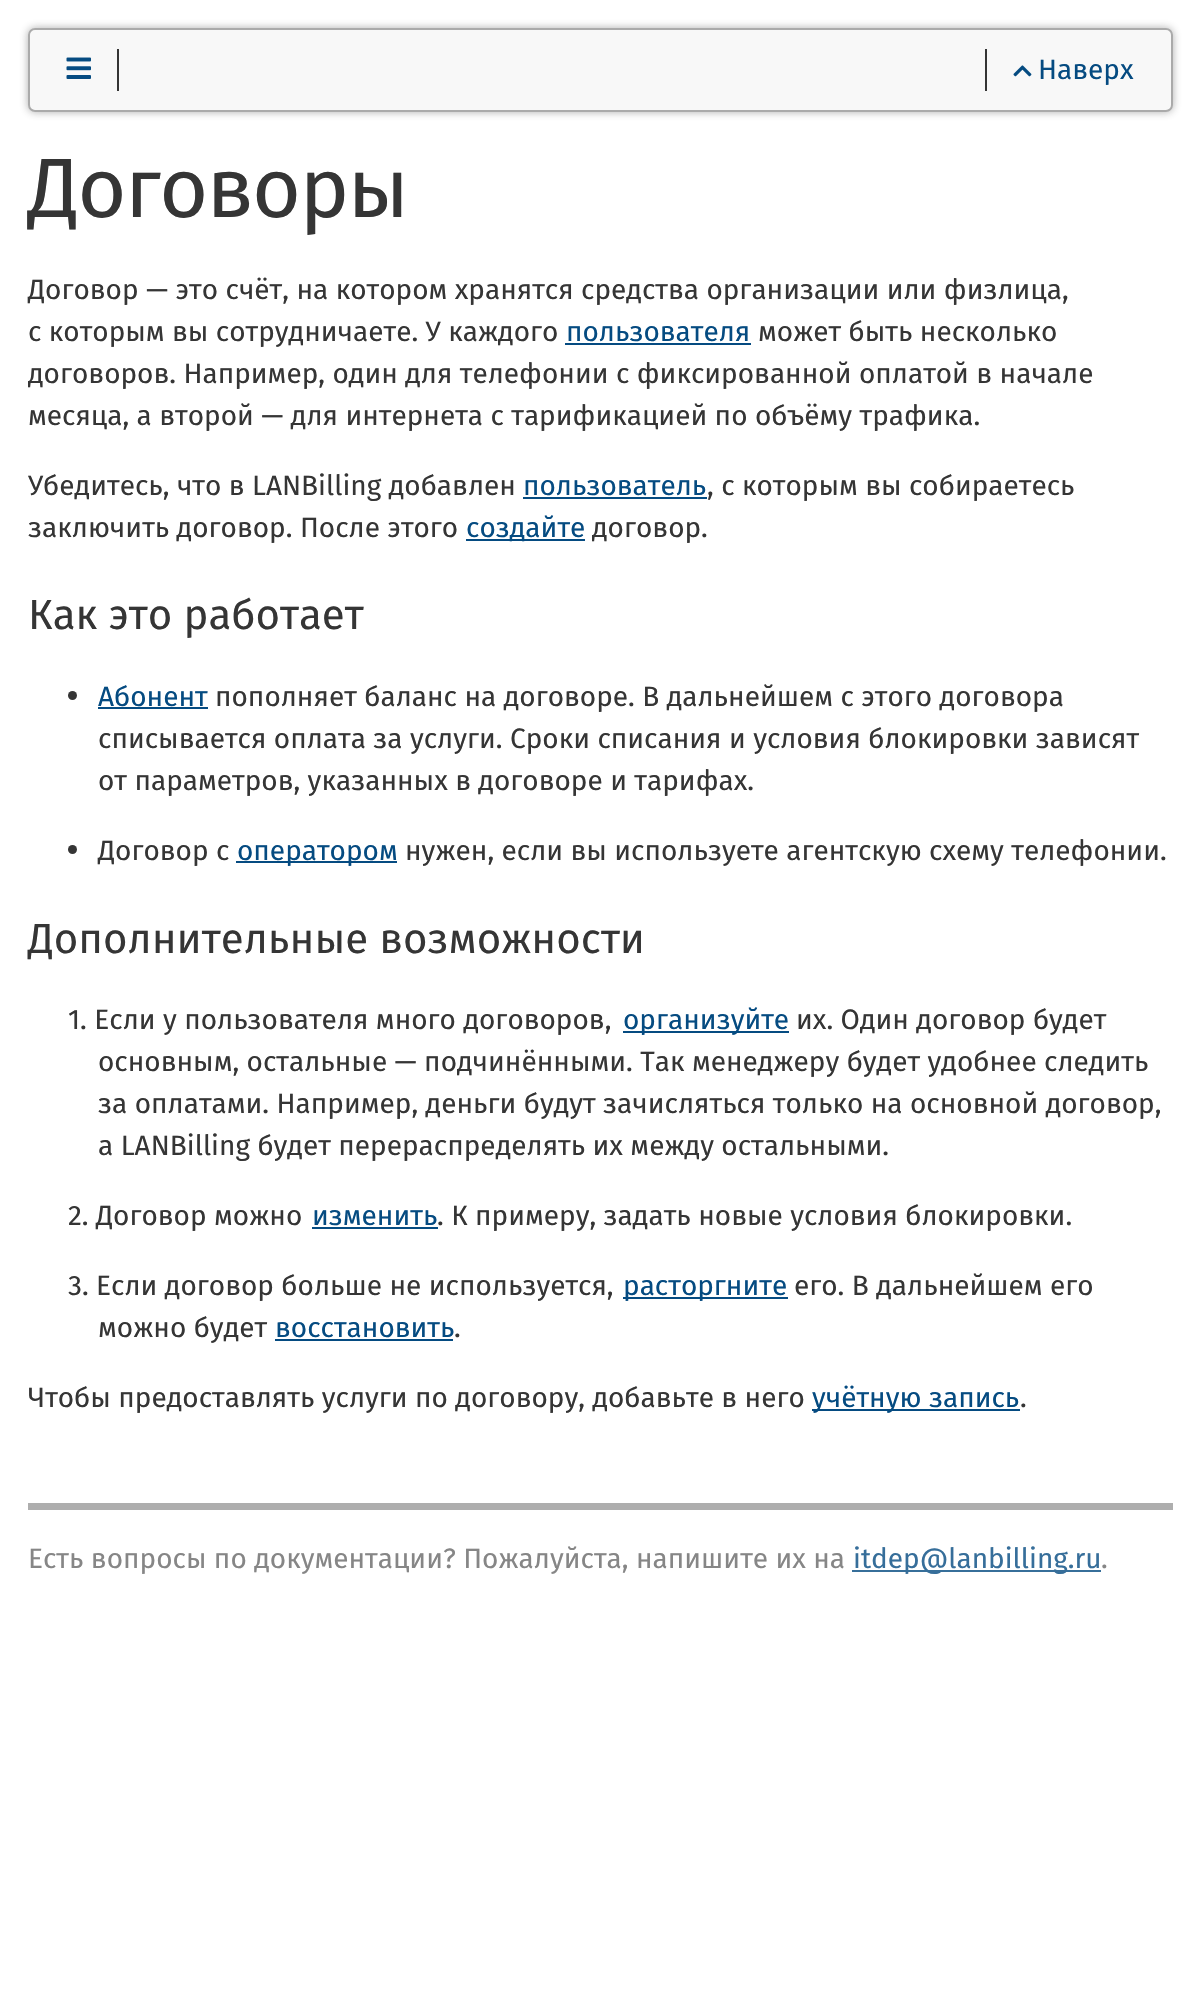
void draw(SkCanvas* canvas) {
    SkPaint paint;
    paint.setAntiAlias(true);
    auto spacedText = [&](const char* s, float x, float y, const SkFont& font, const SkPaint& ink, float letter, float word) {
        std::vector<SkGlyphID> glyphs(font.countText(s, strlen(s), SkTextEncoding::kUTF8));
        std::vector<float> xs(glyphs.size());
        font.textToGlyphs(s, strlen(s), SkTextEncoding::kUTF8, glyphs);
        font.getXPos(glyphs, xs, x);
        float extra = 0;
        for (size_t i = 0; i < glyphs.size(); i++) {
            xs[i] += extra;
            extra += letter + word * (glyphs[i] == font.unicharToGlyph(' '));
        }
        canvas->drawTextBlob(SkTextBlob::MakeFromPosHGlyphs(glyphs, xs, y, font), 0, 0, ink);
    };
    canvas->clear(0xFFFFFFFF);
    paint.setColor(0x66353535);
    paint.setMaskFilter(SkMaskFilter::MakeBlur(kNormal_SkBlurStyle, 4.5f));
    canvas->drawRoundRect(SkRect::MakeXYWH(28, 28, 1145, 84), 7, 7, paint);
    paint.setMaskFilter(nullptr);
    paint.setColor(0xFFF8F8F8);
    canvas->drawRoundRect(SkRect::MakeXYWH(28, 28, 1145, 84), 7, 7, paint);
    paint.setStyle(SkPaint::kStroke_Style);
    paint.setStrokeWidth(2);
    paint.setColor(0x66353535);
    canvas->drawRoundRect(SkRect::MakeXYWH(29, 29, 1143, 82), 6, 6, paint);
    paint.setStyle(SkPaint::kFill_Style);
    paint.setColor(0xFF353535);
    canvas->drawRect(SkRect::MakeXYWH(117, 49, 2, 42), paint);
    canvas->drawImageRect(SkImages::DeferredFromEncodedData(SkData::MakeFromFileName("img1.png")), SkRect::MakeXYWH(66, 57, 25, 22), SkSamplingOptions());
    canvas->drawRect(SkRect::MakeXYWH(985, 49, 2, 42), paint);
    canvas->drawImageRect(SkImages::DeferredFromEncodedData(SkData::MakeFromFileName("img2.png")), SkRect::MakeXYWH(1013, 65, 19, 12), SkSamplingOptions());
    SkFont font1(fontMgr->matchFamilyStyle("Fira Sans", SkFontStyle::Normal()), 28);
    font1.setSubpixel(true);
    paint.setColor(0xFF054B81);
    canvas->drawString("Наверх", 1038, 79, font1, paint);
    SkFont font2(fontMgr->matchFamilyStyle("Fira Sans", SkFontStyle::Normal()), 84);
    font2.setSubpixel(true);
    paint.setColor(0xFF353535);
    spacedText("Договоры", 28, 217, font2, paint, -1.75f, 0);
    canvas->drawString("Договор — это счёт, на котором хранятся средства организации или физлица,", 28, 299, font1, paint);
    canvas->drawString("с которым вы сотрудничаете. У каждого", 28, 341, font1, paint);
    paint.setColor(0xFF054B81);
    canvas->drawString("пользователя", 566, 341, font1, paint);
    canvas->drawRect(SkRect::MakeXYWH(565, 343, 186, 2), paint);
    paint.setColor(0xFF353535);
    canvas->drawString("может быть несколько", 758, 341, font1, paint);
    canvas->drawString("договоров. Например, один для телефонии с фиксированной оплатой в начале", 28, 383, font1, paint);
    canvas->drawString("месяца, а второй — для интернета с тарификацией по объёму трафика.", 28, 425, font1, paint);
    canvas->drawString("Убедитесь, что в LANBilling добавлен", 28, 495, font1, paint);
    paint.setColor(0xFF054B81);
    canvas->drawString("пользователь", 523, 495, font1, paint);
    canvas->drawRect(SkRect::MakeXYWH(523, 497, 184, 2), paint);
    paint.setColor(0xFF353535);
    canvas->drawString(", с которым вы собираетесь", 707, 495, font1, paint);
    canvas->drawString("заключить договор. После этого", 28, 537, font1, paint);
    paint.setColor(0xFF054B81);
    canvas->drawRect(SkRect::MakeXYWH(466, 539, 119, 2), paint);
    canvas->drawString("создайте", 466, 537, font1, paint);
    paint.setColor(0xFF353535);
    canvas->drawString("договор.", 592, 537, font1, paint);
    SkFont font3(fontMgr->matchFamilyStyle("Fira Sans", SkFontStyle::Normal()), 42);
    font3.setSubpixel(true);
    canvas->drawString("Как это работает", 28, 629, font3, paint);
    canvas->drawCircle(72.5f, 695.5f, 4.5f, paint);
    paint.setColor(0xFF054B81);
    canvas->drawString("Абонент", 98, 706, font1, paint);
    canvas->drawRect(SkRect::MakeXYWH(98, 707, 110, 2), paint);
    paint.setColor(0xFF353535);
    canvas->drawString("пополняет баланс на договоре. В дальнейшем с этого договора", 215, 706, font1, paint);
    canvas->drawString("списывается оплата за услуги. Сроки списания и условия блокировки зависят", 98, 748, font1, paint);
    canvas->drawString("от параметров, указанных в договоре и тарифах.", 98, 790, font1, paint);
    canvas->drawCircle(72.5f, 849.5f, 4.5f, paint);
    canvas->drawString("Договор с", 98, 860, font1, paint);
    paint.setColor(0xFF054B81);
    canvas->drawRect(SkRect::MakeXYWH(236, 861, 161, 2), paint);
    canvas->drawString("оператором", 237, 860, font1, paint);
    paint.setColor(0xFF353535);
    canvas->drawString("нужен, если вы используете агентскую схему телефонии.", 405, 860, font1, paint);
    canvas->drawString("Дополнительные возможности", 28, 953, font3, paint);
    paint.setColor(0xFF054B81);
    canvas->drawRect(SkRect::MakeXYWH(623, 1031, 166, 2), paint);
    canvas->drawString("организуйте", 623, 1029, font1, paint);
    paint.setColor(0xFF353535);
    canvas->drawString("их. Один договор будет", 796, 1029, font1, paint);
    canvas->drawString("основным, остальные — подчинёнными. Так менеджеру будет удобнее следить", 98, 1071, font1, paint);
    canvas->drawString("за оплатами. Например, деньги будут зачисляться только на основной договор,", 98, 1113, font1, paint);
    canvas->drawString("а LANBilling будет перераспределять их между остальными.", 98, 1155, font1, paint);
    canvas->drawString("1. Если у пользователя много договоров,", 68, 1029, font1, paint);
    canvas->drawString("2. Договор можно", 68, 1225, font1, paint);
    paint.setColor(0xFF054B81);
    canvas->drawString("изменить", 312, 1225, font1, paint);
    canvas->drawRect(SkRect::MakeXYWH(312, 1227, 126, 2), paint);
    paint.setColor(0xFF353535);
    canvas->drawString(". К примеру, задать новые условия блокировки.", 437, 1225, font1, paint);
    paint.setColor(0xFF054B81);
    canvas->drawRect(SkRect::MakeXYWH(623, 1297, 165, 2), paint);
    canvas->drawString("расторгните", 623, 1295, font1, paint);
    paint.setColor(0xFF353535);
    canvas->drawString("его. В дальнейшем его", 794, 1295, font1, paint);
    canvas->drawString("можно будет", 98, 1337, font1, paint);
    paint.setColor(0xFF054B81);
    canvas->drawString("восстановить", 275, 1337, font1, paint);
    canvas->drawRect(SkRect::MakeXYWH(275, 1339, 178, 2), paint);
    paint.setColor(0xFF353535);
    canvas->drawString(".", 454, 1337, font1, paint);
    canvas->drawString("3. Если договор больше не используется,", 68, 1295, font1, paint);
    canvas->drawString("Чтобы предоставлять услуги по договору, добавьте в него", 28, 1407, font1, paint);
    paint.setColor(0xFF054B81);
    canvas->drawRect(SkRect::MakeXYWH(812, 1409, 208, 2), paint);
    canvas->drawString("учётную запись", 812, 1407, font1, paint);
    paint.setColor(0xFF353535);
    canvas->drawString(".", 1020, 1407, font1, paint);
    paint.setColor(0xFFAEAEAE);
    canvas->drawRect(SkRect::MakeXYWH(28, 1503, 1145, 7), paint);
    paint.setColor(0xFF868686);
    canvas->drawString("Есть вопросы по документации? Пожалуйста, напишите их на", 28, 1568, font1, paint);
    paint.setColor(0xFF376F9A);
    canvas->drawRect(SkRect::MakeXYWH(852, 1570, 249, 2), paint);
    paint.setColor(0xFF366E9A);
    canvas->drawString("itdep@lanbilling.ru", 853, 1568, font1, paint);
    paint.setColor(0xFF868686);
    canvas->drawString(".", 1101, 1568, font1, paint);
}
